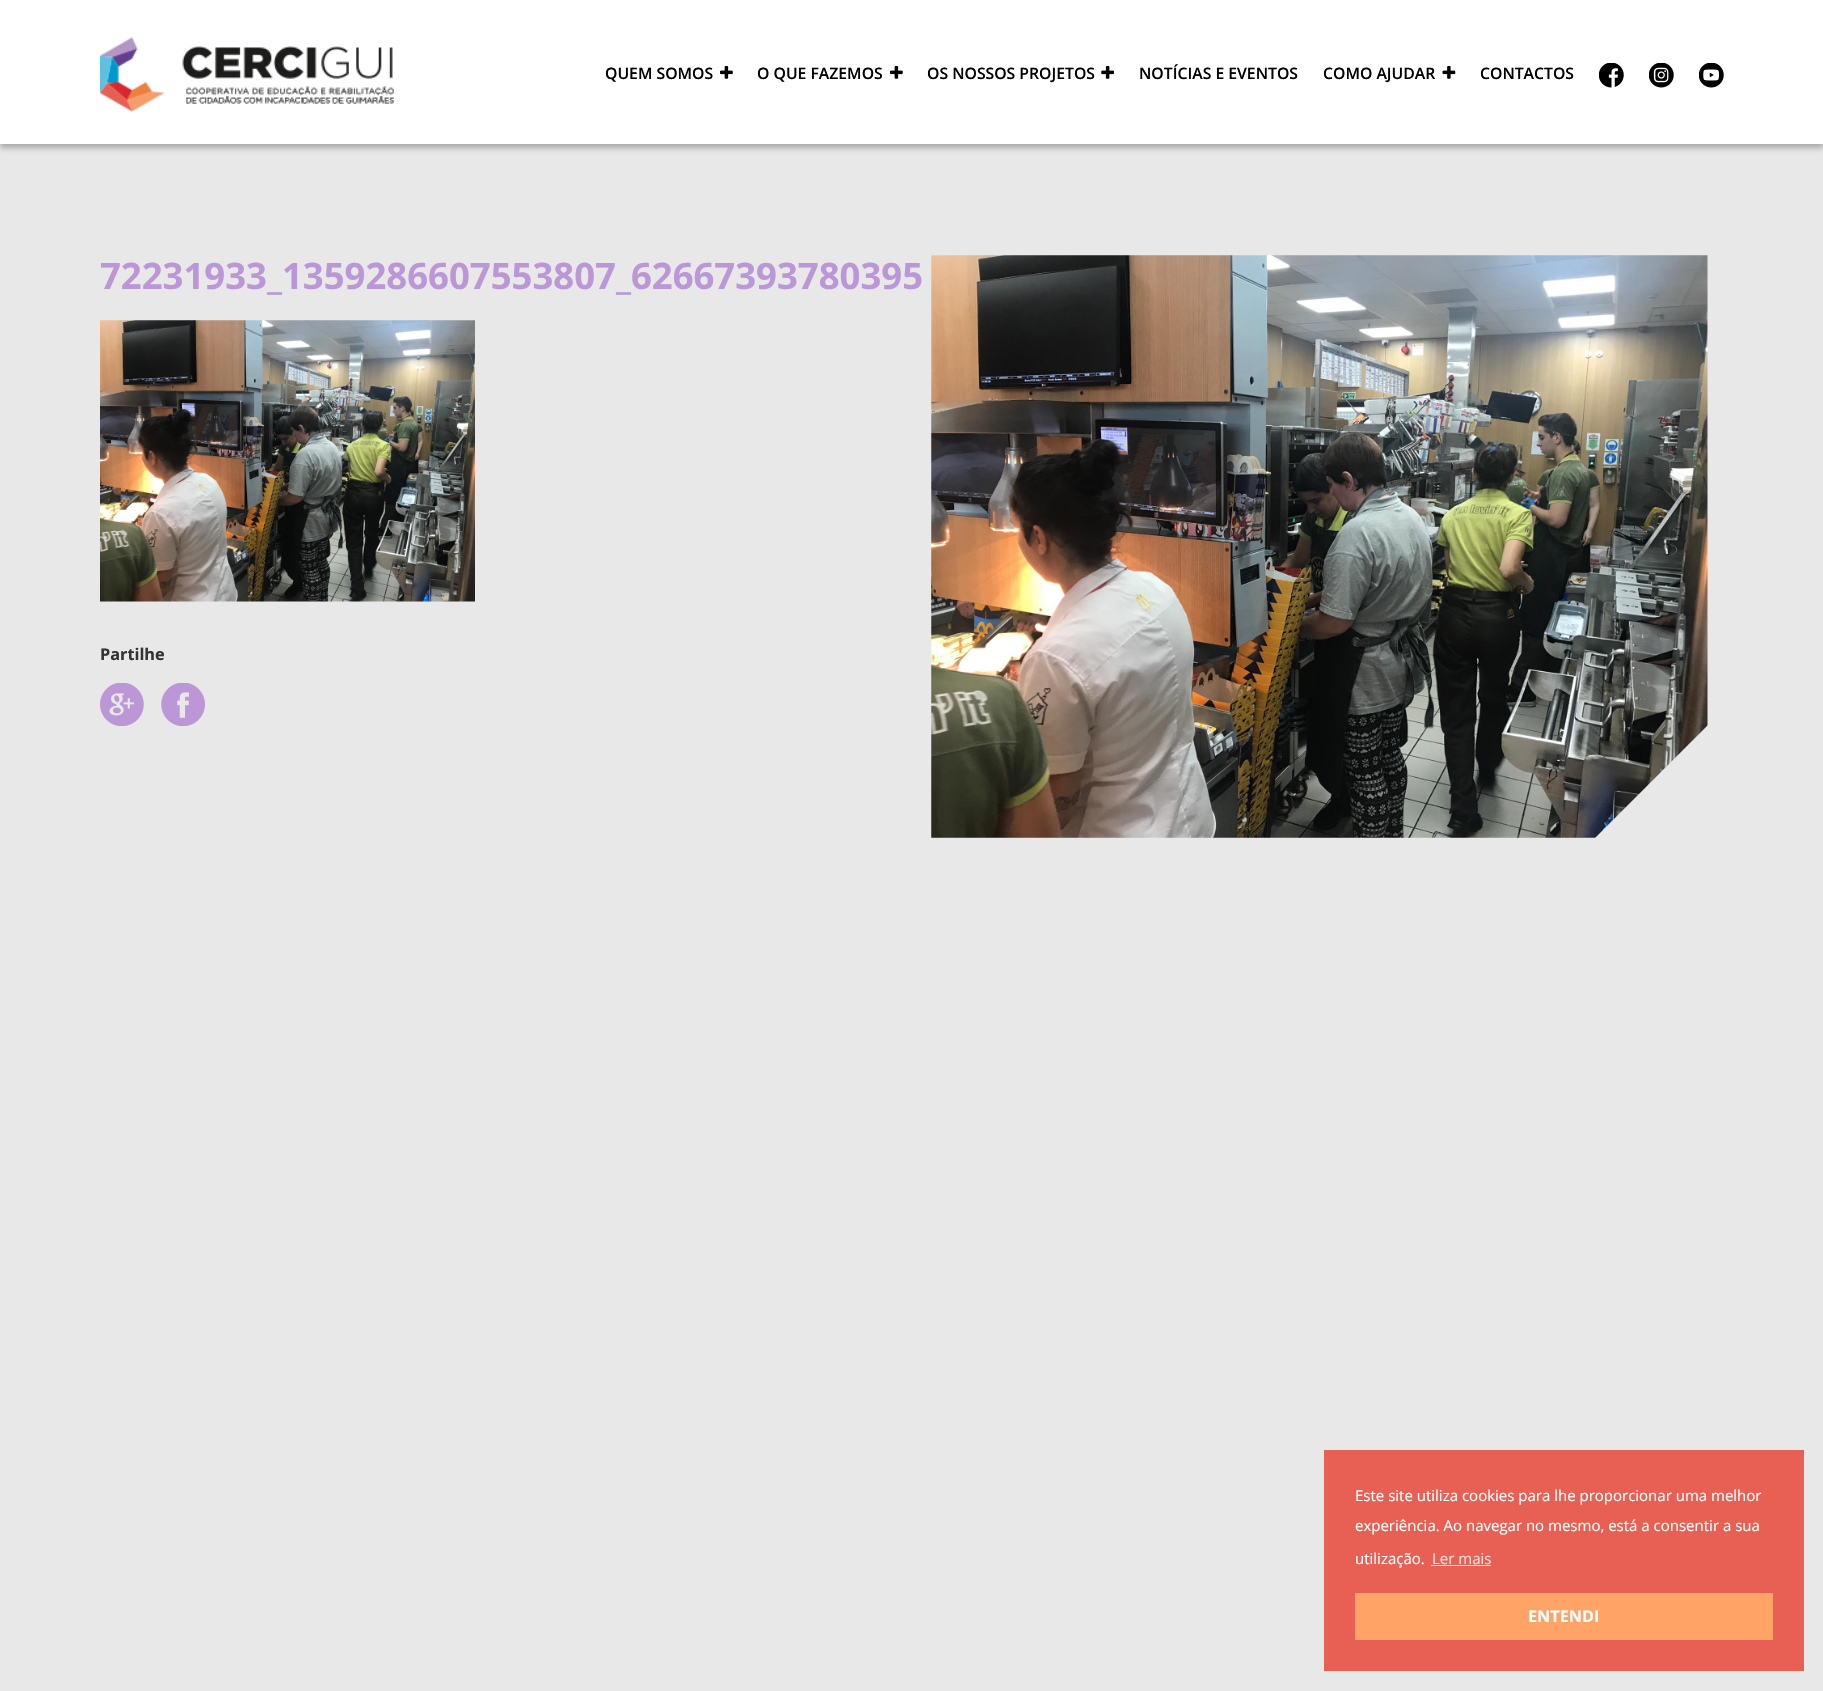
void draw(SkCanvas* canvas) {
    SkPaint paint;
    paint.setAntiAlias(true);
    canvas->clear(0xFFE8E8E8);
    paint.setColor(0x7D646464);
    paint.setMaskFilter(SkMaskFilter::MakeBlur(kNormal_SkBlurStyle, 3));
    canvas->drawRect(SkRect::MakeXYWH(0, 4, 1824, 144), paint);
    paint.setMaskFilter(nullptr);
    paint.setColor(0xFFFFFFFF);
    canvas->drawRect(SkRect::MakeXYWH(0, 0, 1823, 144), paint);
    canvas->drawImageRect(SkImages::DeferredFromEncodedData(SkData::MakeFromFileName("img1.png")), SkRect::MakeXYWH(100, 37, 294, 75), SkSamplingOptions());
    SkFont font1(fontMgr->matchFamilyStyle("Open Sans", SkFontStyle(600, SkFontStyle::kNormal_Width, SkFontStyle::kUpright_Slant)), 15.75f);
    font1.setSubpixel(true);
    paint.setColor(0xFF000000);
    canvas->drawString("QUEM SOMOS", 605, 79, font1, paint);
    canvas->drawImageRect(SkImages::DeferredFromEncodedData(SkData::MakeFromFileName("img2.png")), SkRect::MakeXYWH(720, 66, 13, 13), SkSamplingOptions());
    canvas->drawString("O QUE FAZEMOS", 757, 79, font1, paint);
    canvas->drawImageRect(SkImages::DeferredFromEncodedData(SkData::MakeFromFileName("img2.png")), SkRect::MakeXYWH(890, 66, 13, 13), SkSamplingOptions());
    canvas->drawString("OS NOSSOS PROJETOS", 927, 79, font1, paint);
    canvas->drawImageRect(SkImages::DeferredFromEncodedData(SkData::MakeFromFileName("img3.png")), SkRect::MakeXYWH(1101, 66, 13, 13), SkSamplingOptions());
    canvas->drawString("NOTÍCIAS E EVENTOS", 1139, 79, font1, paint);
    canvas->drawString("COMO AJUDAR", 1323, 79, font1, paint);
    canvas->drawImageRect(SkImages::DeferredFromEncodedData(SkData::MakeFromFileName("img4.png")), SkRect::MakeXYWH(1442, 66, 14, 13), SkSamplingOptions());
    canvas->drawString("CONTACTOS", 1480, 79, font1, paint);
    canvas->drawImageRect(SkImages::DeferredFromEncodedData(SkData::MakeFromFileName("img5.png")), SkRect::MakeXYWH(1599, 63, 25, 25), SkSamplingOptions());
    canvas->drawImageRect(SkImages::DeferredFromEncodedData(SkData::MakeFromFileName("img6.png")), SkRect::MakeXYWH(1649, 63, 25, 25), SkSamplingOptions());
    canvas->drawImageRect(SkImages::DeferredFromEncodedData(SkData::MakeFromFileName("img7.png")), SkRect::MakeXYWH(1699, 63, 25, 25), SkSamplingOptions());
    SkFont font2(fontMgr->matchFamilyStyle("Open Sans", SkFontStyle::Bold()), 36.5f);
    font2.setSubpixel(true);
    paint.setColor(0xFFBB97D7);
    canvas->drawString("72231933_1359286607553807_62667393780395", 100, 289, font2, paint);
    canvas->drawImageRect(SkImages::DeferredFromEncodedData(SkData::MakeFromFileName("img8.png")), SkRect::MakeXYWH(100, 320, 375, 282), SkSamplingOptions());
    SkFont font3(fontMgr->matchFamilyStyle("Open Sans", SkFontStyle::Bold()), 16.25f);
    font3.setSubpixel(true);
    paint.setColor(0xFF333333);
    canvas->drawString("Partilhe", 100, 660, font3, paint);
    canvas->drawImageRect(SkImages::DeferredFromEncodedData(SkData::MakeFromFileName("img9.png")), SkRect::MakeXYWH(100, 683, 44, 43), SkSamplingOptions());
    canvas->drawImageRect(SkImages::DeferredFromEncodedData(SkData::MakeFromFileName("img10.png")), SkRect::MakeXYWH(161, 683, 44, 43), SkSamplingOptions());
    canvas->drawImageRect(SkImages::DeferredFromEncodedData(SkData::MakeFromFileName("img11.png")), SkRect::MakeXYWH(931, 255, 777, 583), SkSamplingOptions());
    paint.setColor(0xFFE8E8E8);
    canvas->drawPath(SkPathBuilder().moveTo(1708, 725).lineTo(1708, 838).lineTo(1595, 838).close().detach(), paint);
    paint.setColor(0xFFE85F53);
    canvas->drawRect(SkRect::MakeXYWH(1324, 1450, 480, 221), paint);
    SkFont font4(fontMgr->matchFamilyStyle("Open Sans", SkFontStyle::Normal()), 15);
    font4.setSubpixel(true);
    paint.setColor(0xFFFFFFFF);
    canvas->drawString("Este site utiliza cookies para lhe proporcionar uma melhor", 1355, 1501, font4, paint);
    canvas->drawString("experiência. Ao navegar no mesmo, está a consentir a sua", 1355, 1531, font4, paint);
    canvas->drawString("utilização.", 1355, 1564, font4, paint);
    paint.setColor(0xFFFADFDD);
    canvas->drawString("Ler mais", 1432, 1564, font4, paint);
    canvas->drawRect(SkRect::MakeXYWH(1431, 1565, 60, 1), paint);
    paint.setColor(0xFFFFA466);
    canvas->drawRect(SkRect::MakeXYWH(1355, 1593, 418, 47), paint);
    paint.setColor(0xFFFFFFFF);
    canvas->drawString("ENTENDI", 1528, 1622, font3, paint);
}
